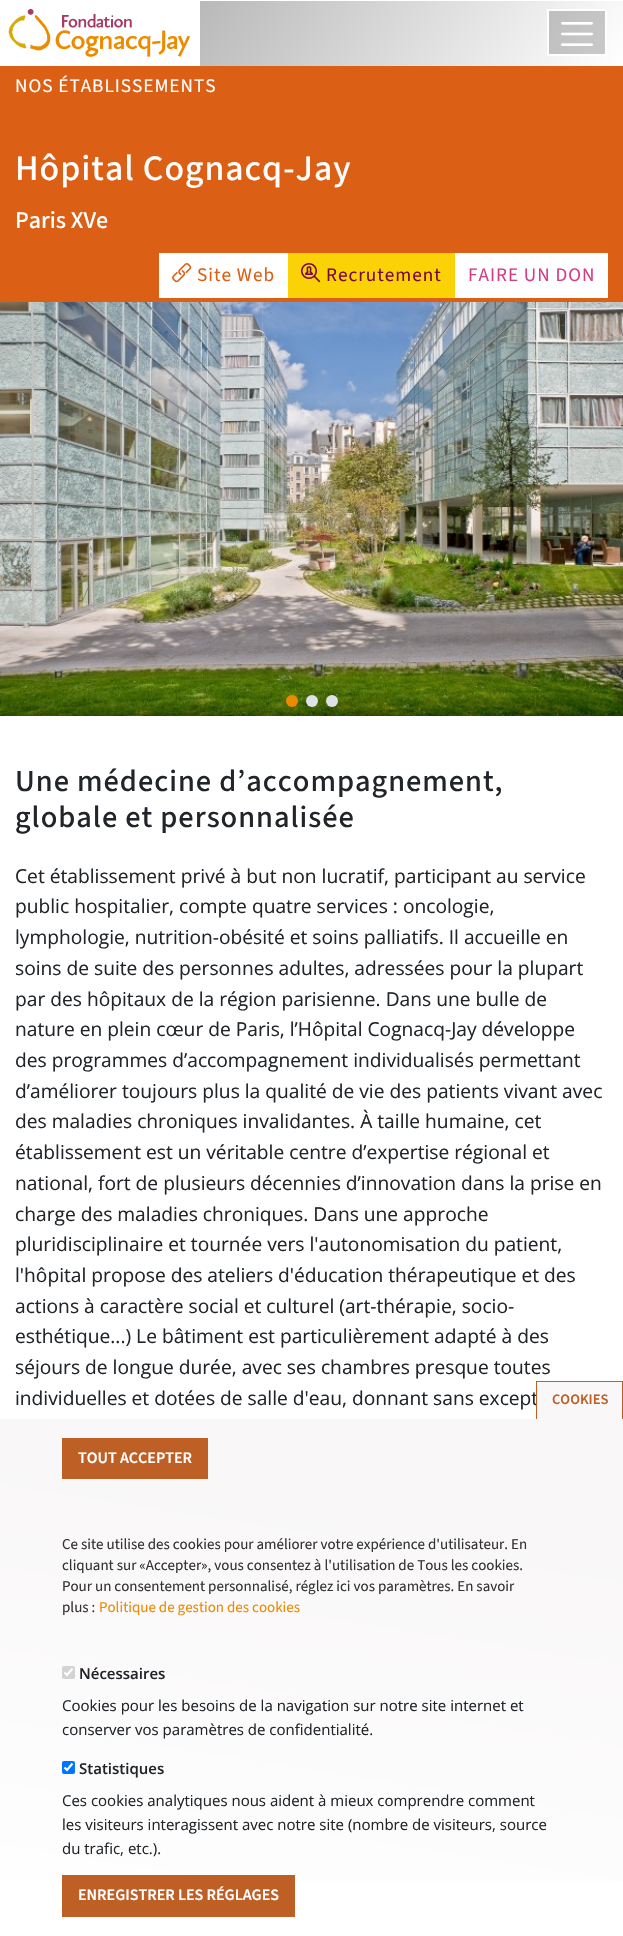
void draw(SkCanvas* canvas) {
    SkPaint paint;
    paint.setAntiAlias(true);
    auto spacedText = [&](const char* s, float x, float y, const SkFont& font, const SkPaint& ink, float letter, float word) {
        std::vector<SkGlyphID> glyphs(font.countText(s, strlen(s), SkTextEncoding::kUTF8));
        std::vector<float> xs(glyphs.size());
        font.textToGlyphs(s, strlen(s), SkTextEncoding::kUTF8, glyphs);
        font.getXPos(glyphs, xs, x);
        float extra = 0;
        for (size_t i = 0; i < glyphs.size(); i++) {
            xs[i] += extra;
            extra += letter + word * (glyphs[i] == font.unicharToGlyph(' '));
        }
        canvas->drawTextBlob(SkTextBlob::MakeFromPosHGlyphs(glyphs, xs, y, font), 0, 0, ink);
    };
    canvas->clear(0xFFFFFFFF);
    {
        const SkColor colors[] = {0xFFFFFFFF, 0xFF9B9B9B};
        const float stops[] = {0, 1};
        const SkPoint ends[] = {{536, 191}, {87, -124}};
        paint.setShader(SkGradientShader::MakeLinear(ends, colors, stops, 2, SkTileMode::kClamp));
        paint.setAlpha(255);
    }
    canvas->drawRect(SkRect::MakeXYWH(200, 1, 423, 65), paint);
    {
        const SkColor colors[] = {0xFFCCCCCC, 0xFF7C7C7C};
        const float stops[] = {0, 1};
        const SkPoint ends[] = {{536, 191}, {87, -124}};
        paint.setShader(SkGradientShader::MakeLinear(ends, colors, stops, 2, SkTileMode::kClamp));
        paint.setAlpha(255);
    }
    canvas->drawRect(SkRect::MakeXYWH(549, 11, 56, 43), paint);
    canvas->drawImageRect(SkImages::DeferredFromEncodedData(SkData::MakeFromFileName("img1.png")), SkRect::MakeXYWH(0, 1, 200, 65), SkSamplingOptions());
    paint.setStyle(SkPaint::kStroke_Style);
    paint.setStrokeWidth(2);
    paint.setShader(nullptr);
    paint.setColor(0xFFFFFFFF);
    canvas->drawRect(SkRect::MakeXYWH(548, 10, 58, 45), paint);
    canvas->drawImageRect(SkImages::DeferredFromEncodedData(SkData::MakeFromFileName("img2.png")), SkRect::MakeXYWH(561, 22, 32, 24), SkSamplingOptions());
    paint.setStyle(SkPaint::kFill_Style);
    paint.setColor(0xFFDB6015);
    canvas->drawRect(SkRect::MakeXYWH(0, 66, 623, 236), paint);
    SkFont font1(fontMgr->matchFamilyStyle("Source Sans 3", SkFontStyle::Normal()), 19.2f);
    font1.setSubpixel(true);
    paint.setColor(0xFFFFFFFF);
    spacedText("NOS ÉTABLISSEMENTS", 15, 92, font1, paint, 1, 0);
    SkFont font2(fontMgr->matchFamilyStyle("Source Sans 3", SkFontStyle(500, SkFontStyle::kNormal_Width, SkFontStyle::kUpright_Slant)), 35.9f);
    font2.setSubpixel(true);
    spacedText("Hôpital Cognacq-Jay", 15, 180, font2, paint, 1, 0);
    SkFont font3(fontMgr->matchFamilyStyle("Source Sans 3", SkFontStyle(500, SkFontStyle::kNormal_Width, SkFontStyle::kUpright_Slant)), 24);
    font3.setSubpixel(true);
    canvas->drawString("Paris XVe", 15, 228, font3, paint);
    canvas->drawRect(SkRect::MakeXYWH(159, 253, 129, 45), paint);
    canvas->drawImageRect(SkImages::DeferredFromEncodedData(SkData::MakeFromFileName("img3.png")), SkRect::MakeXYWH(172, 263, 20, 20), SkSamplingOptions());
    paint.setColor(0xFFDB6015);
    spacedText("Site Web", 197, 281, font1, paint, 1, 0);
    paint.setColor(0xFFFAD205);
    canvas->drawRect(SkRect::MakeXYWH(288, 253, 167, 45), paint);
    canvas->drawImageRect(SkImages::DeferredFromEncodedData(SkData::MakeFromFileName("img4.png")), SkRect::MakeXYWH(301, 263, 20, 20), SkSamplingOptions());
    paint.setColor(0xFF780843);
    spacedText("Recrutement", 326, 281, font1, paint, 1, 0);
    paint.setColor(0xFFFFFFFF);
    canvas->drawRect(SkRect::MakeXYWH(455, 253, 153, 45), paint);
    paint.setColor(0xFFD43D85);
    spacedText("FAIRE UN DON", 468, 281, font1, paint, 1, 0);
    canvas->drawImageRect(SkImages::DeferredFromEncodedData(SkData::MakeFromFileName("img5.png")), SkRect::MakeXYWH(0, 302, 623, 414), SkSamplingOptions());
    paint.setColor(0xFFED8B00);
    canvas->drawCircle(292, 701, 6, paint);
    paint.setColor(0xFFDEE2E6);
    canvas->drawCircle(312, 701, 6, paint);
    canvas->drawCircle(332, 701, 6, paint);
    SkFont font4(fontMgr->matchFamilyStyle("Source Sans 3", SkFontStyle(500, SkFontStyle::kNormal_Width, SkFontStyle::kUpright_Slant)), 30.5f);
    font4.setSubpixel(true);
    paint.setColor(0xFF212529);
    spacedText("Une médecine d’accompagnement,", 15, 791, font4, paint, 1, 0);
    spacedText("globale et personnalisée", 15, 827, font4, paint, 1, 0);
    SkFont font5(fontMgr->matchFamilyStyle("Open Sans", SkFontStyle::Normal()), 19.2f);
    font5.setSubpixel(true);
    canvas->drawString("Cet établissement privé à but non lucratif, participant au service", 15, 883, font5, paint);
    canvas->drawString("public hospitalier, compte quatre services : oncologie,", 15, 913, font5, paint);
    canvas->drawString("lymphologie, nutrition-obésité et soins palliatifs. Il accueille en", 15, 944, font5, paint);
    canvas->drawString("soins de suite des personnes adultes, adressées pour la plupart", 15, 975, font5, paint);
    canvas->drawString("par des hôpitaux de la région parisienne. Dans une bulle de", 15, 1006, font5, paint);
    canvas->drawString("nature en plein cœur de Paris, l’Hôpital Cognacq-Jay développe", 15, 1036, font5, paint);
    canvas->drawString("des programmes d’accompagnement individualisés permettant", 15, 1067, font5, paint);
    canvas->drawString("d’améliorer toujours plus la qualité de vie des patients vivant avec", 15, 1098, font5, paint);
    canvas->drawString("des maladies chroniques invalidantes. À taille humaine, cet", 15, 1128, font5, paint);
    canvas->drawString("établissement est un véritable centre d’expertise régional et", 15, 1159, font5, paint);
    canvas->drawString("national, fort de plusieurs décennies d’innovation dans la prise en", 15, 1190, font5, paint);
    canvas->drawString("charge des maladies chroniques. Dans une approche", 15, 1221, font5, paint);
    canvas->drawString("pluridisciplinaire et tournée vers l'autonomisation du patient,", 15, 1251, font5, paint);
    canvas->drawString("l'hôpital propose des ateliers d'éducation thérapeutique et des", 15, 1282, font5, paint);
    canvas->drawString("actions à caractère social et culturel (art-thérapie, socio-", 15, 1313, font5, paint);
    canvas->drawString("esthétique...) Le bâtiment est particulièrement adapté à des", 15, 1343, font5, paint);
    canvas->drawString("séjours de longue durée, avec ses chambres presque toutes", 15, 1374, font5, paint);
    canvas->drawString("individuelles et dotées de salle d'eau, donnant sans except", 15, 1405, font5, paint);
    {
        const SkColor colors[] = {0xFFFFFFFF, 0xFFF9F7F7};
        const float stops[] = {0, 0.8f};
        const SkPoint ends[] = {{264, 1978}, {359, 1377}};
        paint.setShader(SkGradientShader::MakeLinear(ends, colors, stops, 2, SkTileMode::kClamp));
        paint.setAlpha(255);
    }
    canvas->drawRect(SkRect::MakeXYWH(0, 1419, 623, 462), paint);
    paint.setShader(nullptr);
    paint.setColor(0xFFF9F7F7);
    canvas->drawRect(SkRect::MakeXYWH(537, 1382, 85, 37), paint);
    paint.setColor(0xFFBE5F26);
    canvas->drawRect(SkRect::MakeXYWH(536, 1381, 87, 1), paint);
    canvas->drawRect(SkRect::MakeXYWH(622, 1381, 1, 38), paint);
    canvas->drawRect(SkRect::MakeXYWH(536, 1381, 1, 38), paint);
    SkFont font6(fontMgr->matchFamilyStyle("Source Sans 3", SkFontStyle(600, SkFontStyle::kNormal_Width, SkFontStyle::kUpright_Slant)), 14.5f);
    font6.setSubpixel(true);
    canvas->drawString("COOKIES", 552, 1404, font6, paint);
    canvas->drawRect(SkRect::MakeXYWH(62, 1438, 146, 41), paint);
    SkFont font7(fontMgr->matchFamilyStyle("Source Sans 3", SkFontStyle(600, SkFontStyle::kNormal_Width, SkFontStyle::kUpright_Slant)), 16);
    font7.setSubpixel(true);
    paint.setColor(0xFFFFFFFF);
    canvas->drawString("TOUT ACCEPTER", 78, 1463, font7, paint);
    SkFont font8(fontMgr->matchFamilyStyle("Source Sans 3", SkFontStyle::Normal()), 15);
    font8.setSubpixel(true);
    paint.setColor(0xFF333333);
    canvas->drawString("Ce site utilise des cookies pour améliorer votre expérience d'utilisateur. En", 62, 1549, font8, paint);
    canvas->drawString("cliquant sur «Accepter», vous consentez à l'utilisation de Tous les cookies.", 62, 1570, font8, paint);
    canvas->drawString("Pour un consentement personnalisé, réglez ici vos paramètres. En savoir", 62, 1591, font8, paint);
    canvas->drawString("plus :", 62, 1612, font8, paint);
    paint.setColor(0xFFED8B00);
    canvas->drawString("Politique de gestion des cookies", 99, 1612, font8, paint);
    paint.setColor(0xFFD4D3D3);
    canvas->drawRoundRect(SkRect::MakeXYWH(62, 1666, 13, 13), 2, 2, paint);
    paint.setStyle(SkPaint::kStroke_Style);
    paint.setStrokeWidth(2.1f);
    paint.setColor(0xFFFFFFFF);
    canvas->drawPath(SkPathBuilder().moveTo(64.5f, 1672.5f).lineTo(67, 1675).lineTo(72.5f, 1668.5f).detach(), paint);
    SkFont font9(fontMgr->matchFamilyStyle("Open Sans", SkFontStyle(600, SkFontStyle::kNormal_Width, SkFontStyle::kUpright_Slant)), 15);
    font9.setSubpixel(true);
    paint.setStyle(SkPaint::kFill_Style);
    paint.setColor(0xFF212529);
    canvas->drawString("Nécessaires", 79, 1679, font9, paint);
    SkFont font10(fontMgr->matchFamilyStyle("Open Sans", SkFontStyle::Normal()), 15);
    font10.setSubpixel(true);
    canvas->drawString("Cookies pour les besoins de la navigation sur notre site internet et", 62, 1711, font10, paint);
    canvas->drawString("conserver vos paramètres de confidentialité.", 62, 1735, font10, paint);
    paint.setColor(0xFF0075FF);
    canvas->drawRoundRect(SkRect::MakeXYWH(62, 1761, 13, 13), 2, 2, paint);
    paint.setStyle(SkPaint::kStroke_Style);
    paint.setColor(0xFFFFFFFF);
    canvas->drawPath(SkPathBuilder().moveTo(64.5f, 1767.5f).lineTo(67, 1770).lineTo(72.5f, 1763.5f).detach(), paint);
    paint.setStyle(SkPaint::kFill_Style);
    paint.setColor(0xFF212529);
    canvas->drawString("Statistiques", 79, 1774, font9, paint);
    canvas->drawString("Ces cookies analytiques nous aident à mieux comprendre comment", 62, 1806, font10, paint);
    canvas->drawString("les visiteurs interagissent avec notre site (nombre de visiteurs, source", 62, 1830, font10, paint);
    canvas->drawString("du trafic, etc.).", 62, 1854, font10, paint);
    paint.setColor(0xFFBE5F26);
    canvas->drawRect(SkRect::MakeXYWH(62, 1875, 233, 42), paint);
    paint.setColor(0xFFFFFFFF);
    canvas->drawString("ENREGISTRER LES RÉGLAGES", 78, 1900, font7, paint);
}
